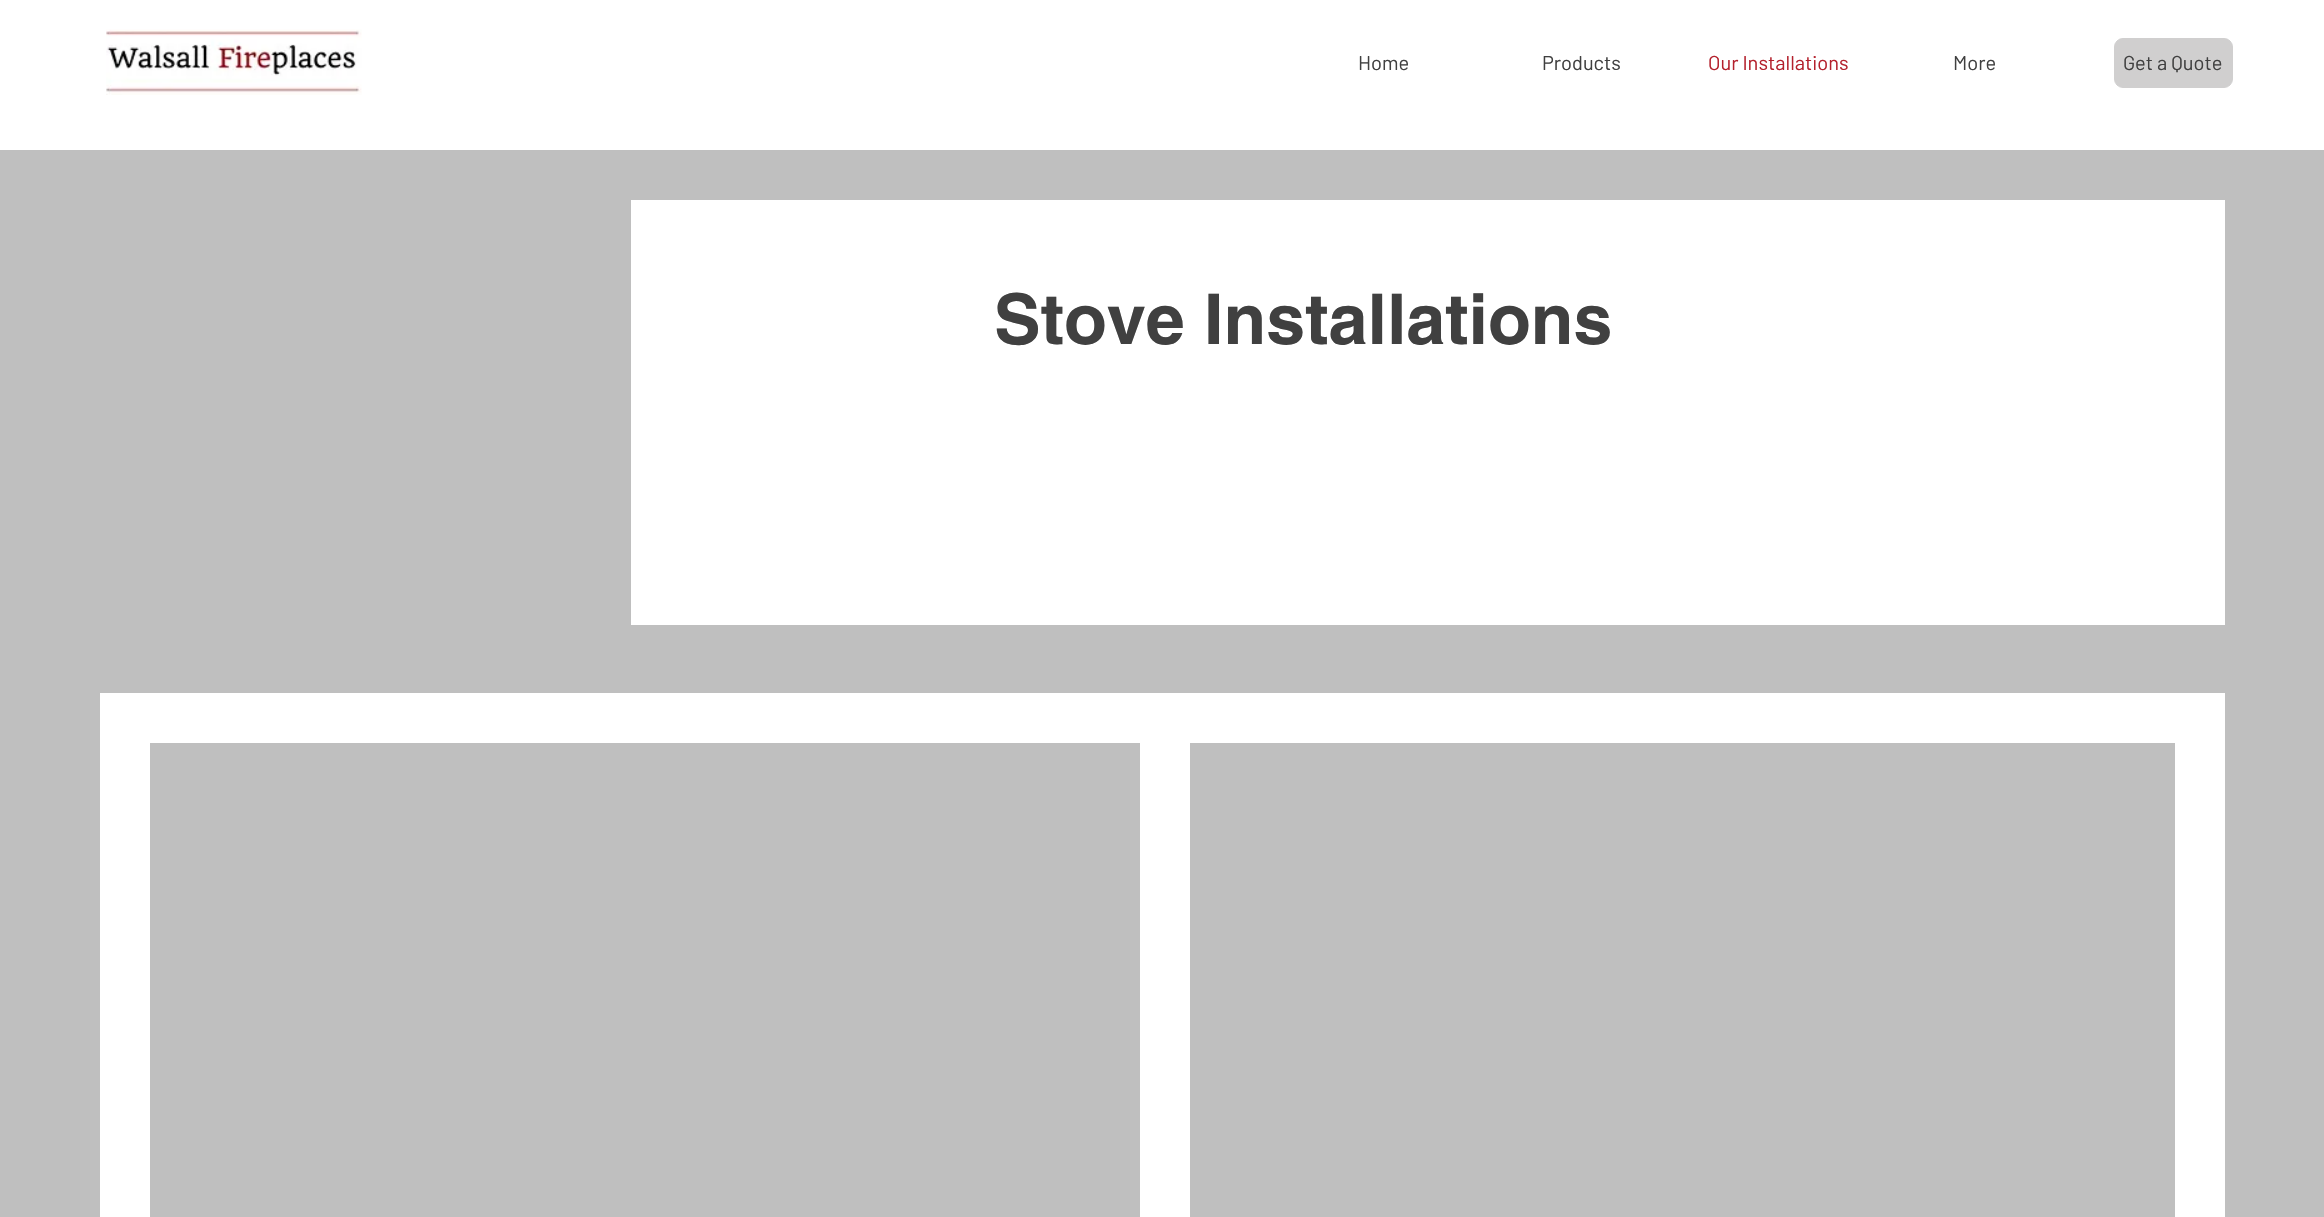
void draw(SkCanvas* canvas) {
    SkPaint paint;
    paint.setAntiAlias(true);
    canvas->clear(0xFFBFBFBF);
    paint.setColor(0xFFFFFFFF);
    canvas->drawRect(SkRect::MakeXYWH(0, 0, 2324, 150), paint);
    canvas->drawImageRect(SkImages::DeferredFromEncodedData(SkData::MakeFromFileName("img1.png")), SkRect::MakeXYWH(106, 29, 256, 66), SkSamplingOptions());
    SkFont font1(fontMgr->matchFamilyStyle("Barlow", SkFontStyle::Normal()), 20);
    font1.setSubpixel(true);
    paint.setColor(0xFF404040);
    canvas->drawString("Home", 1358, 70, font1, paint);
    canvas->drawString("Products", 1542, 70, font1, paint);
    paint.setColor(0xFFB4212D);
    canvas->drawString("Our Installations", 1708, 70, font1, paint);
    paint.setColor(0xFF404040);
    canvas->drawString("More", 1953, 70, font1, paint);
    paint.setColor(0xFFD0CFCF);
    canvas->drawRoundRect(SkRect::MakeXYWH(2114.5f, 38.5f, 118, 49), 8.5f, 8.5f, paint);
    paint.setStyle(SkPaint::kStroke_Style);
    paint.setStrokeWidth(1);
    canvas->drawRoundRect(SkRect::MakeXYWH(2114.5f, 38.5f, 118, 49), 8.5f, 8.5f, paint);
    paint.setStyle(SkPaint::kFill_Style);
    paint.setColor(0xFF404040);
    canvas->drawString("Get a Quote", 2123, 70, font1, paint);
    paint.setColor(0xFFFFFFFF);
    canvas->drawRect(SkRect::MakeXYWH(631, 200, 1594, 425), paint);
    SkFont font2(fontMgr->matchFamilyStyle("helvetica", SkFontStyle::Bold()), 70);
    font2.setSubpixel(true);
    paint.setColor(0xFF404040);
    canvas->drawString("Stove Installations", 994, 344, font2, paint);
    paint.setColor(0xFFFFFFFF);
    canvas->drawRect(SkRect::MakeXYWH(100, 693, 2125, 524), paint);
    paint.setColor(0xFFBFBFBF);
    canvas->drawRect(SkRect::MakeXYWH(150, 743, 990, 474), paint);
    canvas->drawRect(SkRect::MakeXYWH(1190, 743, 985, 474), paint);
}
